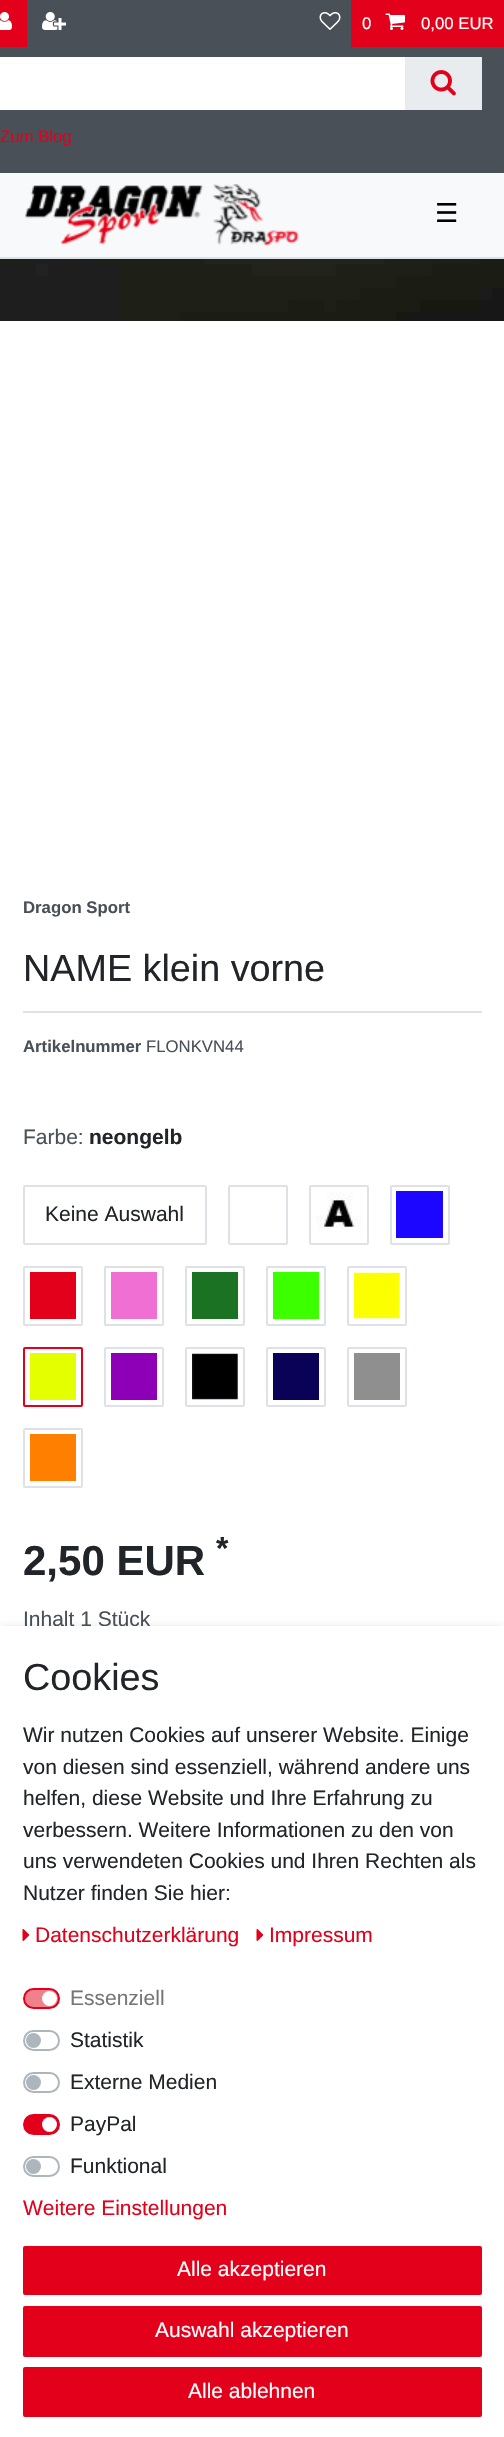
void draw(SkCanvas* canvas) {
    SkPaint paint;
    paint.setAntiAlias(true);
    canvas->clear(0xFFFFFFFF);
    canvas->drawImageRect(SkImages::DeferredFromEncodedData(SkData::MakeFromFileName("img1.png")), SkRect::MakeXYWH(0, 259, 504, 62), SkSamplingOptions());
    paint.setColor(0xFF495057);
    canvas->drawRect(SkRect::MakeXYWH(0, 0, 504, 173), paint);
    paint.setColor(0xFFE2001A);
    canvas->drawRect(SkRect::MakeXYWH(0, 0, 27, 47), paint);
    canvas->drawImageRect(SkImages::DeferredFromEncodedData(SkData::MakeFromFileName("img2.png")), SkRect::MakeXYWH(0, 12, 12, 18), SkSamplingOptions());
    canvas->drawImageRect(SkImages::DeferredFromEncodedData(SkData::MakeFromFileName("img3.png")), SkRect::MakeXYWH(42, 12, 24, 18), SkSamplingOptions());
    canvas->drawImageRect(SkImages::DeferredFromEncodedData(SkData::MakeFromFileName("img4.png")), SkRect::MakeXYWH(319, 12, 22, 18), SkSamplingOptions());
    canvas->drawRect(SkRect::MakeXYWH(351, 0, 153, 47), paint);
    SkFont font1(fontMgr->matchFamilyStyle("Liberation Sans", SkFontStyle::Normal()), 16.75f);
    font1.setSubpixel(true);
    paint.setColor(0xFFFFFFFF);
    canvas->drawString("0", 362, 29, font1, paint);
    canvas->drawImageRect(SkImages::DeferredFromEncodedData(SkData::MakeFromFileName("img5.png")), SkRect::MakeXYWH(385, 13, 20, 17), SkSamplingOptions());
    canvas->drawString("0,00 EUR", 421, 29, font1, paint);
    canvas->drawRect(SkRect::MakeXYWH(0, 57, 405, 53), paint);
    paint.setColor(0xFFE9ECEF);
    canvas->drawRect(SkRect::MakeXYWH(405, 57, 77, 53), paint);
    canvas->drawImageRect(SkImages::DeferredFromEncodedData(SkData::MakeFromFileName("img6.png")), SkRect::MakeXYWH(430, 70, 26, 26), SkSamplingOptions());
    paint.setColor(0xFFE2001A);
    canvas->drawString("Zum Blog", 0, 142, font1, paint);
    paint.setColor(0xFFF8F9FA);
    canvas->drawRect(SkRect::MakeXYWH(0, 173, 504, 84), paint);
    paint.setColor(0xFFDEE2E6);
    canvas->drawRect(SkRect::MakeXYWH(0, 257, 504, 2), paint);
    canvas->drawImageRect(SkImages::DeferredFromEncodedData(SkData::MakeFromFileName("img7.png")), SkRect::MakeXYWH(25, 184, 274, 62), SkSamplingOptions());
    SkFont font2(fontMgr->matchFamilyStyle("DejaVu Sans", SkFontStyle::Normal()), 26);
    font2.setSubpixel(true);
    paint.setColor(0xFF000000);
    canvas->drawString("☰", 435, 222, font2, paint);
    SkFont font3(fontMgr->matchFamilyStyle("Liberation Sans", SkFontStyle::Bold()), 16.75f);
    font3.setSubpixel(true);
    paint.setColor(0xFF495057);
    canvas->drawString("Dragon Sport", 23, 913, font3, paint);
    SkFont font4(fontMgr->matchFamilyStyle("Liberation Sans", SkFontStyle::Normal()), 37.75f);
    font4.setSubpixel(true);
    paint.setColor(0xFF212529);
    canvas->drawString("NAME klein vorne", 23, 981, font4, paint);
    paint.setColor(0xFFDEE2E6);
    canvas->drawRect(SkRect::MakeXYWH(23, 1011, 459, 2), paint);
    paint.setColor(0xFF495057);
    canvas->drawString("Artikelnummer", 23, 1052, font3, paint);
    canvas->drawString("FLONKVN44", 146, 1052, font1, paint);
    SkFont font5(fontMgr->matchFamilyStyle("Liberation Sans", SkFontStyle::Normal()), 21);
    font5.setSubpixel(true);
    canvas->drawString("Farbe:", 23, 1144, font5, paint);
    SkFont font6(fontMgr->matchFamilyStyle("Liberation Sans", SkFontStyle::Bold()), 21);
    font6.setSubpixel(true);
    paint.setColor(0xFF212529);
    canvas->drawString("neongelb", 89, 1144, font6, paint);
    paint.setStyle(SkPaint::kStroke_Style);
    paint.setStrokeWidth(2);
    paint.setColor(0xFFDEE2E6);
    canvas->drawRoundRect(SkRect::MakeXYWH(24, 1186, 182, 58), 1, 1, paint);
    paint.setStyle(SkPaint::kFill_Style);
    paint.setColor(0xFF212529);
    canvas->drawString("Keine Auswahl", 45, 1221, font5, paint);
    paint.setStyle(SkPaint::kStroke_Style);
    paint.setColor(0xFFDEE2E6);
    canvas->drawRoundRect(SkRect::MakeXYWH(229, 1186, 58, 58), 1, 1, paint);
    canvas->drawRoundRect(SkRect::MakeXYWH(310, 1186, 58, 58), 1, 1, paint);
    canvas->drawImageRect(SkImages::DeferredFromEncodedData(SkData::MakeFromFileName("img8.png")), SkRect::MakeXYWH(316, 1192, 45, 36), SkSamplingOptions());
    canvas->drawRoundRect(SkRect::MakeXYWH(391, 1186, 58, 58), 1, 1, paint);
    paint.setStyle(SkPaint::kFill_Style);
    paint.setColor(0xFF1C06FF);
    canvas->drawRect(SkRect::MakeXYWH(396, 1191, 47, 47), paint);
    paint.setStyle(SkPaint::kStroke_Style);
    paint.setColor(0xFFDEE2E6);
    canvas->drawRoundRect(SkRect::MakeXYWH(24, 1267, 58, 58), 1, 1, paint);
    paint.setStyle(SkPaint::kFill_Style);
    paint.setColor(0xFFE3001B);
    canvas->drawRect(SkRect::MakeXYWH(30, 1272, 46, 47), paint);
    paint.setStyle(SkPaint::kStroke_Style);
    paint.setColor(0xFFDEE2E6);
    canvas->drawRoundRect(SkRect::MakeXYWH(105, 1267, 58, 58), 1, 1, paint);
    paint.setStyle(SkPaint::kFill_Style);
    paint.setColor(0xFFF06FD3);
    canvas->drawRect(SkRect::MakeXYWH(111, 1272, 46, 47), paint);
    paint.setStyle(SkPaint::kStroke_Style);
    paint.setColor(0xFFDEE2E6);
    canvas->drawRoundRect(SkRect::MakeXYWH(186, 1267, 58, 58), 1, 1, paint);
    paint.setStyle(SkPaint::kFill_Style);
    paint.setColor(0xFF1B7223);
    canvas->drawRect(SkRect::MakeXYWH(192, 1272, 46, 47), paint);
    paint.setStyle(SkPaint::kStroke_Style);
    paint.setColor(0xFFDEE2E6);
    canvas->drawRoundRect(SkRect::MakeXYWH(267, 1267, 58, 58), 1, 1, paint);
    paint.setStyle(SkPaint::kFill_Style);
    paint.setColor(0xFF3CFF00);
    canvas->drawRect(SkRect::MakeXYWH(273, 1272, 46, 47), paint);
    paint.setStyle(SkPaint::kStroke_Style);
    paint.setColor(0xFFDEE2E6);
    canvas->drawRoundRect(SkRect::MakeXYWH(348, 1267, 58, 58), 1, 1, paint);
    canvas->drawImageRect(SkImages::DeferredFromEncodedData(SkData::MakeFromFileName("img9.png")), SkRect::MakeXYWH(354, 1272, 46, 47), SkSamplingOptions());
    paint.setColor(0xFFE2001A);
    canvas->drawRoundRect(SkRect::MakeXYWH(24, 1348, 58, 58), 1, 1, paint);
    paint.setStyle(SkPaint::kFill_Style);
    paint.setColor(0xFFE4FF00);
    canvas->drawRect(SkRect::MakeXYWH(30, 1353, 46, 47), paint);
    paint.setStyle(SkPaint::kStroke_Style);
    paint.setColor(0xFFDEE2E6);
    canvas->drawRoundRect(SkRect::MakeXYWH(105, 1348, 58, 58), 1, 1, paint);
    paint.setStyle(SkPaint::kFill_Style);
    paint.setColor(0xFF8E00B7);
    canvas->drawRect(SkRect::MakeXYWH(111, 1353, 46, 47), paint);
    paint.setStyle(SkPaint::kStroke_Style);
    paint.setColor(0xFFDEE2E6);
    canvas->drawRoundRect(SkRect::MakeXYWH(186, 1348, 58, 58), 1, 1, paint);
    canvas->drawImageRect(SkImages::DeferredFromEncodedData(SkData::MakeFromFileName("img10.png")), SkRect::MakeXYWH(192, 1353, 46, 47), SkSamplingOptions());
    canvas->drawRoundRect(SkRect::MakeXYWH(267, 1348, 58, 58), 1, 1, paint);
    paint.setStyle(SkPaint::kFill_Style);
    paint.setColor(0xFF0A0257);
    canvas->drawRect(SkRect::MakeXYWH(273, 1353, 46, 47), paint);
    paint.setStyle(SkPaint::kStroke_Style);
    paint.setColor(0xFFDEE2E6);
    canvas->drawRoundRect(SkRect::MakeXYWH(348, 1348, 58, 58), 1, 1, paint);
    paint.setStyle(SkPaint::kFill_Style);
    paint.setColor(0xFF8F8F8F);
    canvas->drawRect(SkRect::MakeXYWH(354, 1353, 46, 47), paint);
    paint.setStyle(SkPaint::kStroke_Style);
    paint.setColor(0xFFDEE2E6);
    canvas->drawRoundRect(SkRect::MakeXYWH(24, 1429, 58, 58), 1, 1, paint);
    paint.setStyle(SkPaint::kFill_Style);
    paint.setColor(0xFFFF7F00);
    canvas->drawRect(SkRect::MakeXYWH(30, 1434, 46, 47), paint);
    SkFont font7(fontMgr->matchFamilyStyle("Liberation Sans", SkFontStyle::Bold()), 32);
    font7.setSubpixel(true);
    paint.setColor(0xFF212529);
    canvas->drawString("*", 216, 1559, font7, paint);
    SkFont font8(fontMgr->matchFamilyStyle("Liberation Sans", SkFontStyle::Bold()), 42);
    font8.setSubpixel(true);
    canvas->drawString("2,50 EUR", 23, 1575, font8, paint);
    paint.setColor(0xFF495057);
    canvas->drawString("Inhalt 1 Stück", 23, 1626, font5, paint);
    paint.setColor(0x26000000);
    paint.setMaskFilter(SkMaskFilter::MakeBlur(kNormal_SkBlurStyle, 4));
    canvas->drawRect(SkRect::MakeXYWH(0, 1628, 504, 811), paint);
    paint.setMaskFilter(nullptr);
    paint.setColor(0xFFFFFFFF);
    canvas->drawRect(SkRect::MakeXYWH(0, 1626, 504, 811), paint);
    paint.setColor(0xFF212529);
    canvas->drawString("Cookies", 23, 1690, font4, paint);
    canvas->drawString("Wir nutzen Cookies auf unserer Website. Einige", 23, 1742, font5, paint);
    canvas->drawString("von diesen sind essenziell, während andere uns", 23, 1774, font5, paint);
    canvas->drawString("helfen, diese Website und Ihre Erfahrung zu", 23, 1805, font5, paint);
    canvas->drawString("verbessern. Weitere Informationen zu den von", 23, 1837, font5, paint);
    canvas->drawString("uns verwendeten Cookies und Ihren Rechten als", 23, 1868, font5, paint);
    canvas->drawString("Nutzer finden Sie hier:", 23, 1900, font5, paint);
    canvas->drawImageRect(SkImages::DeferredFromEncodedData(SkData::MakeFromFileName("img11.png")), SkRect::MakeXYWH(22, 1929, 8, 12), SkSamplingOptions());
    paint.setColor(0xFFE2001A);
    canvas->drawString("Datenschutzerklärung", 35, 1942, font5, paint);
    canvas->drawImageRect(SkImages::DeferredFromEncodedData(SkData::MakeFromFileName("img11.png")), SkRect::MakeXYWH(256, 1929, 8, 12), SkSamplingOptions());
    canvas->drawString("Impressum", 269, 1942, font5, paint);
    paint.setColor(0xFFF1808D);
    canvas->drawRoundRect(SkRect::MakeXYWH(24, 1989, 35, 19), 9.5f, 9.5f, paint);
    paint.setStyle(SkPaint::kStroke_Style);
    paint.setColor(0xFFE2001A);
    canvas->drawRoundRect(SkRect::MakeXYWH(24, 1989, 35, 19), 9.5f, 9.5f, paint);
    paint.setStyle(SkPaint::kFill_Style);
    paint.setColor(0xFF767676);
    canvas->drawString("Essenziell", 70, 2005, font5, paint);
    paint.setColor(0xFFFFFFFF);
    canvas->drawCircle(49.5f, 1998.5f, 7.5f, paint);
    paint.setStyle(SkPaint::kStroke_Style);
    paint.setColor(0xFFADB5BD);
    canvas->drawRoundRect(SkRect::MakeXYWH(24, 2031, 35, 19), 9.5f, 9.5f, paint);
    paint.setStyle(SkPaint::kFill_Style);
    paint.setColor(0xFF212529);
    canvas->drawString("Statistik", 70, 2047, font5, paint);
    paint.setColor(0xFFADB5BD);
    canvas->drawCircle(33.5f, 2040.5f, 7.5f, paint);
    paint.setStyle(SkPaint::kStroke_Style);
    canvas->drawRoundRect(SkRect::MakeXYWH(24, 2073, 35, 19), 9.5f, 9.5f, paint);
    paint.setStyle(SkPaint::kFill_Style);
    paint.setColor(0xFF212529);
    canvas->drawString("Externe Medien", 70, 2089, font5, paint);
    paint.setColor(0xFFADB5BD);
    canvas->drawCircle(33.5f, 2082.5f, 7.5f, paint);
    paint.setColor(0xFFE2001A);
    canvas->drawRoundRect(SkRect::MakeXYWH(24, 2115, 35, 19), 9.5f, 9.5f, paint);
    paint.setStyle(SkPaint::kStroke_Style);
    canvas->drawRoundRect(SkRect::MakeXYWH(24, 2115, 35, 19), 9.5f, 9.5f, paint);
    paint.setStyle(SkPaint::kFill_Style);
    paint.setColor(0xFF212529);
    canvas->drawString("PayPal", 70, 2131, font5, paint);
    paint.setColor(0xFFFFFFFF);
    canvas->drawCircle(49.5f, 2124.5f, 7.5f, paint);
    paint.setStyle(SkPaint::kStroke_Style);
    paint.setColor(0xFFADB5BD);
    canvas->drawRoundRect(SkRect::MakeXYWH(24, 2157, 35, 19), 9.5f, 9.5f, paint);
    paint.setStyle(SkPaint::kFill_Style);
    paint.setColor(0xFF212529);
    canvas->drawString("Funktional", 70, 2173, font5, paint);
    paint.setColor(0xFFADB5BD);
    canvas->drawCircle(33.5f, 2166.5f, 7.5f, paint);
    paint.setColor(0xFFE2001A);
    canvas->drawString("Weitere Einstellungen", 23, 2215, font5, paint);
    canvas->drawRoundRect(SkRect::MakeXYWH(24, 2247, 457, 47), 1, 1, paint);
    paint.setStyle(SkPaint::kStroke_Style);
    canvas->drawRoundRect(SkRect::MakeXYWH(24, 2247, 457, 47), 1, 1, paint);
    paint.setStyle(SkPaint::kFill_Style);
    paint.setColor(0xFFFFFFFF);
    canvas->drawString("Alle akzeptieren", 177, 2276, font5, paint);
    paint.setColor(0xFFE2001A);
    canvas->drawRoundRect(SkRect::MakeXYWH(24, 2307, 457, 49), 1, 1, paint);
    paint.setStyle(SkPaint::kStroke_Style);
    canvas->drawRoundRect(SkRect::MakeXYWH(24, 2307, 457, 49), 1, 1, paint);
    paint.setStyle(SkPaint::kFill_Style);
    paint.setColor(0xFFFFFFFF);
    canvas->drawString("Auswahl akzeptieren", 155, 2337, font5, paint);
    paint.setColor(0xFFE2001A);
    canvas->drawRoundRect(SkRect::MakeXYWH(24, 2368, 457, 48), 1, 1, paint);
    paint.setStyle(SkPaint::kStroke_Style);
    canvas->drawRoundRect(SkRect::MakeXYWH(24, 2368, 457, 48), 1, 1, paint);
    paint.setStyle(SkPaint::kFill_Style);
    paint.setColor(0xFFFFFFFF);
    canvas->drawString("Alle ablehnen", 188, 2398, font5, paint);
}
